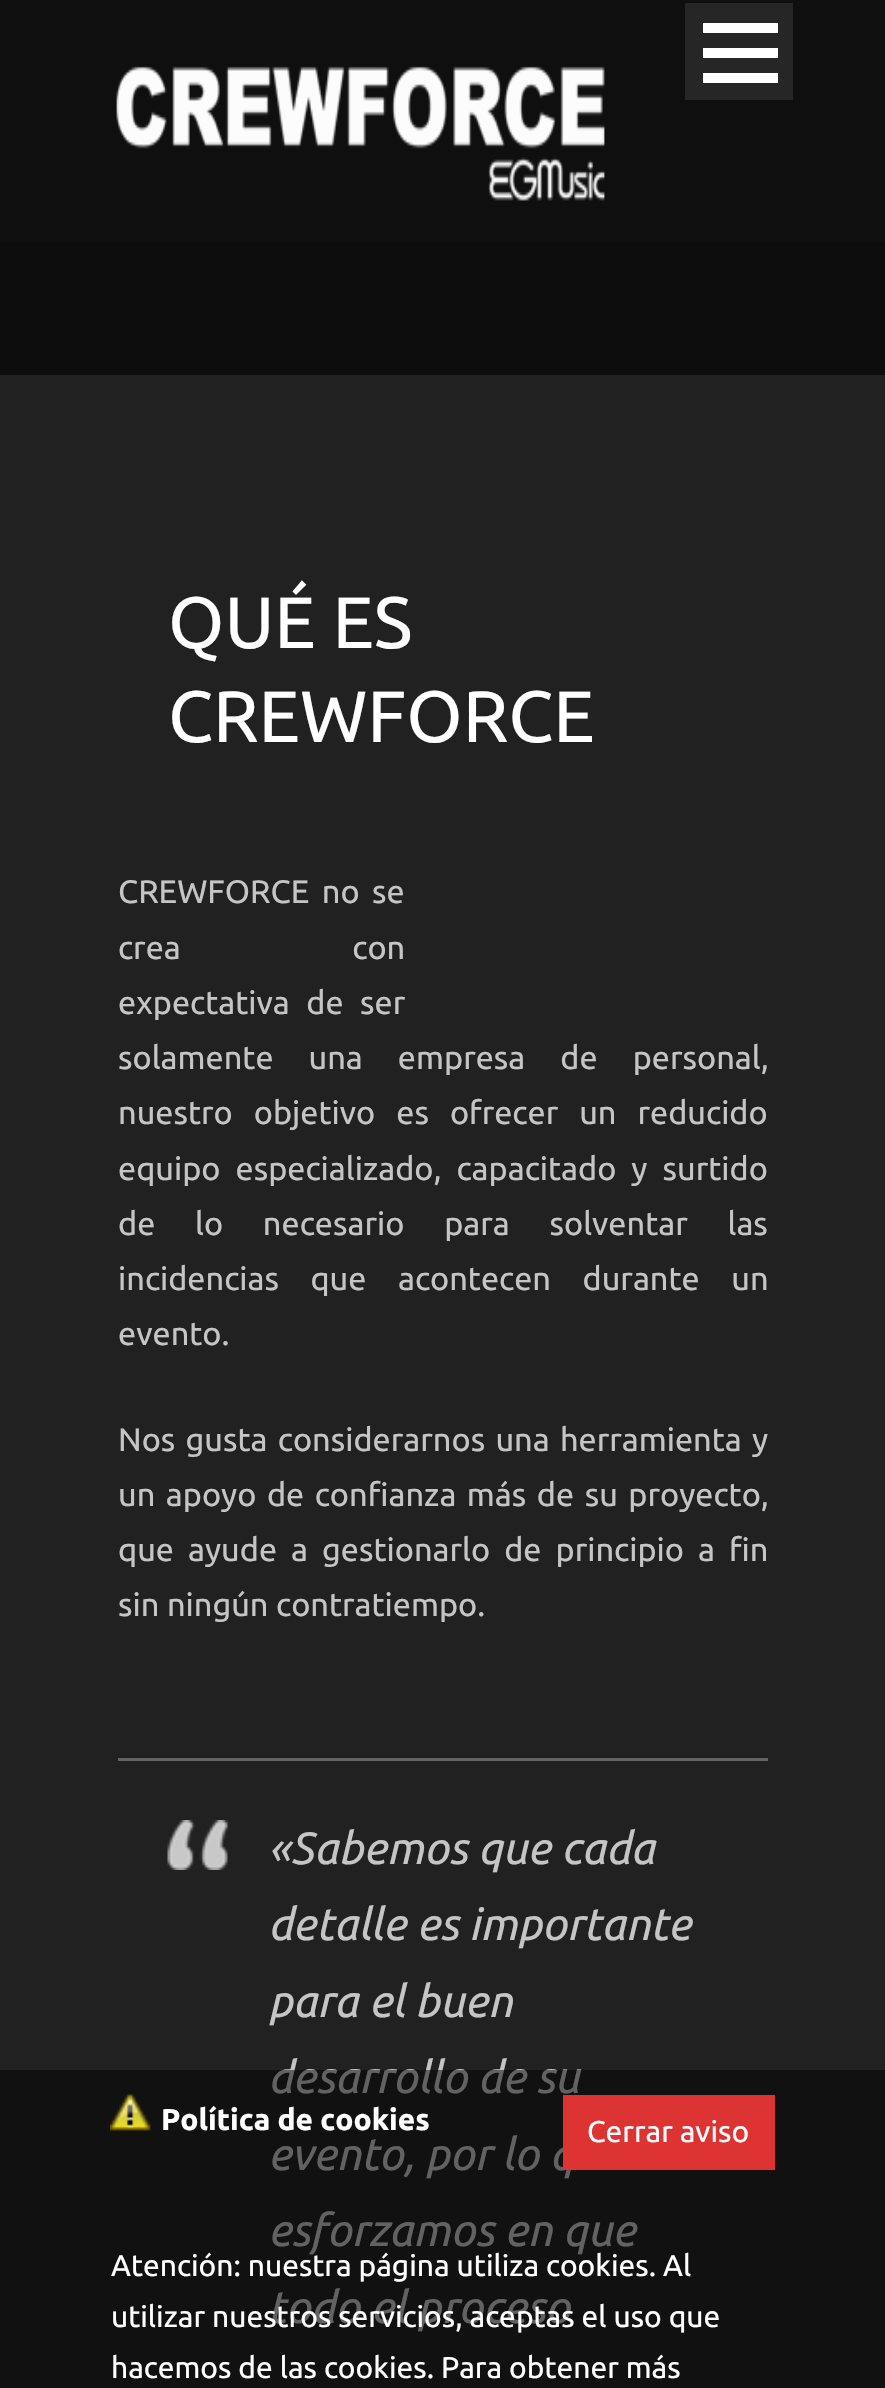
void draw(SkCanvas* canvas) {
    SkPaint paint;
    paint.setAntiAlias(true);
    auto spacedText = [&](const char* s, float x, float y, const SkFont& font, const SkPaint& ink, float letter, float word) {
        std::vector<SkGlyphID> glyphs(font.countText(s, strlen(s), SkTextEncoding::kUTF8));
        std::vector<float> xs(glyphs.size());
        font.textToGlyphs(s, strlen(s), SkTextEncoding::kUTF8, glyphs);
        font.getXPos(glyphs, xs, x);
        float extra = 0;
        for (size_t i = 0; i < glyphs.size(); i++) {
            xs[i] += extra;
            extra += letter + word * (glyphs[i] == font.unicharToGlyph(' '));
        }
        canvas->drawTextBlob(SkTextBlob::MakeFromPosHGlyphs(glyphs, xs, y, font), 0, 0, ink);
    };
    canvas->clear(0xFF212121);
    paint.setColor(0xFF0F0F0F);
    canvas->drawRect(SkRect::MakeXYWH(0, 0, 885, 243), paint);
    paint.setColor(0xFF262626);
    canvas->drawRect(SkRect::MakeXYWH(685, 3, 108, 97), paint);
    paint.setColor(0xFFFFFFFF);
    canvas->drawRect(SkRect::MakeXYWH(703, 73, 75, 10), paint);
    canvas->drawRect(SkRect::MakeXYWH(703, 48, 75, 10), paint);
    canvas->drawRect(SkRect::MakeXYWH(703, 23, 75, 10), paint);
    canvas->drawImageRect(SkImages::DeferredFromEncodedData(SkData::MakeFromFileName("img1.png")), SkRect::MakeXYWH(116, 66, 489, 135), SkSamplingOptions());
    paint.setColor(0xFF0D0D0D);
    canvas->drawRect(SkRect::MakeXYWH(0, 243, 885, 132), paint);
    SkFont font1(fontMgr->matchFamilyStyle("Ubuntu", SkFontStyle::Normal()), 72.5f);
    font1.setSubpixel(true);
    paint.setColor(0xFFFFFFFF);
    canvas->drawString("QUÉ ES", 168, 648, font1, paint);
    canvas->drawString("CREWFORCE", 168, 742, font1, paint);
    SkFont font2(fontMgr->matchFamilyStyle("Ubuntu", SkFontStyle::Normal()), 32.5f);
    font2.setSubpixel(true);
    paint.setColor(0xFFC5C5C5);
    spacedText("CREWFORCE no se", 118, 903, font2, paint, 0, 5);
    spacedText("crea con", 118, 959, font2, paint, 0, 164);
    spacedText("expectativa de ser", 118, 1014, font2, paint, 0, 9);
    spacedText("solamente una empresa de personal,", 118, 1069, font2, paint, 0, 27.5f);
    spacedText("nuestro objetivo es ofrecer un reducido", 118, 1124, font2, paint, 0, 13.5f);
    spacedText("equipo especializado, capacitado y surtido", 118, 1180, font2, paint, 0, 7.5f);
    spacedText("de lo necesario para solventar las", 118, 1235, font2, paint, 0, 32.25f);
    spacedText("incidencias que acontecen durante un", 118, 1290, font2, paint, 0, 24);
    canvas->drawString("evento.", 118, 1345, font2, paint);
    spacedText("Nos gusta considerarnos una herramienta y", 118, 1451, font2, paint, 0, 2.75f);
    spacedText("un apoyo de confianza más de su proyecto,", 118, 1506, font2, paint, 0, 3);
    spacedText("que ayude a gestionarlo de principio a fin", 118, 1561, font2, paint, 0, 6.5f);
    canvas->drawString("sin ningún contratiempo.", 118, 1616, font2, paint);
    canvas->drawImageRect(SkImages::DeferredFromEncodedData(SkData::MakeFromFileName("img2.png")), SkRect::MakeXYWH(167, 1820, 61, 50), SkSamplingOptions());
    paint.setColor(0xFF636363);
    canvas->drawRect(SkRect::MakeXYWH(118, 1758, 650, 3), paint);
    SkFont font3(fontMgr->matchFamilyStyle("Ubuntu", SkFontStyle::Italic()), 45);
    font3.setSubpixel(true);
    paint.setColor(0xFFC5C5C5);
    canvas->drawString("«Sabemos que cada", 268, 1864, font3, paint);
    canvas->drawString("detalle es importante", 268, 1940, font3, paint);
    canvas->drawString("para el buen", 268, 2017, font3, paint);
    canvas->drawString("desarrollo de su", 268, 2093, font3, paint);
    canvas->drawString("evento, por lo q", 268, 2170, font3, paint);
    canvas->drawString("esforzamos en que", 268, 2246, font3, paint);
    canvas->drawString("todo el proceso", 268, 2323, font3, paint);
    paint.setColor(0x80000000);
    canvas->drawRect(SkRect::MakeXYWH(0, 2070, 885, 318), paint);
    canvas->drawImageRect(SkImages::DeferredFromEncodedData(SkData::MakeFromFileName("img3.png")), SkRect::MakeXYWH(110, 2094, 41, 37), SkSamplingOptions());
    SkFont font4(fontMgr->matchFamilyStyle("Ubuntu", SkFontStyle::Bold()), 30);
    font4.setSubpixel(true);
    paint.setColor(0xFFFFFFFF);
    canvas->drawString("Política de cookies", 161, 2130, font4, paint);
    paint.setColor(0xFFDD3333);
    canvas->drawRect(SkRect::MakeXYWH(563, 2095, 212, 75), paint);
    SkFont font5(fontMgr->matchFamilyStyle("Ubuntu", SkFontStyle::Normal()), 30);
    font5.setSubpixel(true);
    paint.setColor(0xFFFFFFFF);
    canvas->drawString("Cerrar aviso", 587, 2142, font5, paint);
    canvas->drawString("Atención: nuestra página utiliza cookies. Al", 111, 2276, font5, paint);
    canvas->drawString("utilizar nuestros servicios, aceptas el uso que", 111, 2327, font5, paint);
    canvas->drawString("hacemos de las cookies. Para obtener más", 111, 2378, font5, paint);
}
